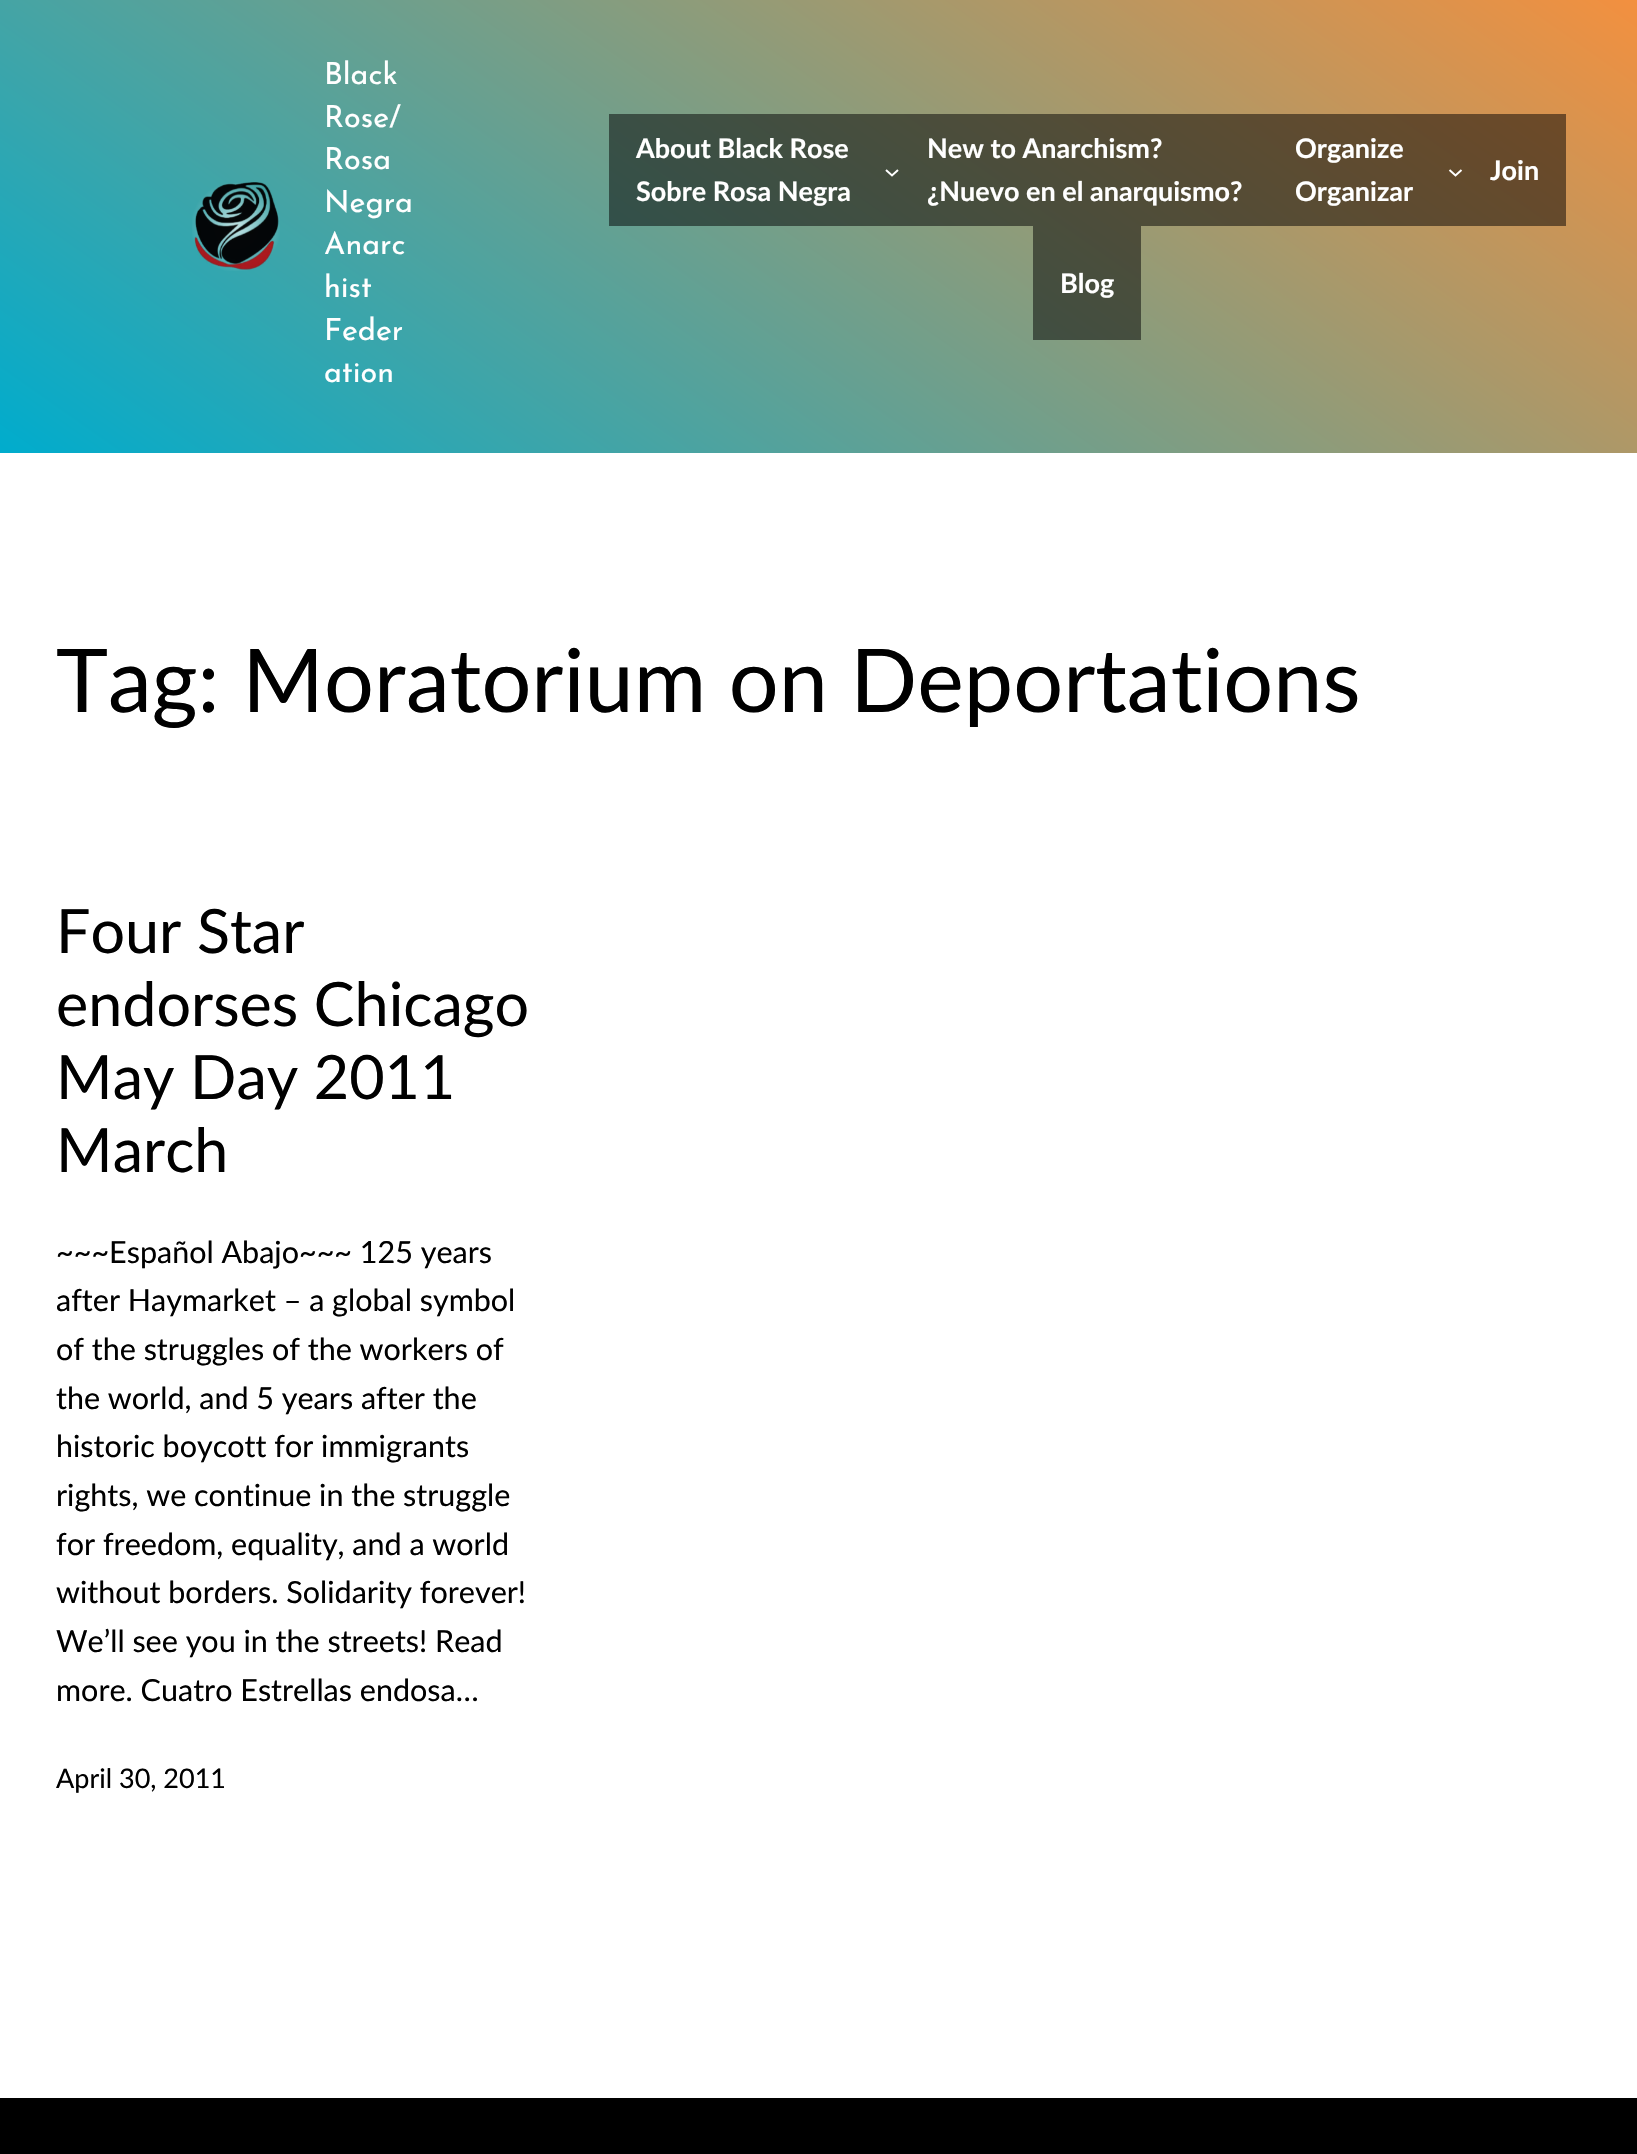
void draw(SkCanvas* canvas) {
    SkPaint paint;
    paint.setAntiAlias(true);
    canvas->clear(0xFFFFFFFF);
    {
        const SkColor colors[] = {0xFFF3903F, 0xFF00ACCD};
        const float stops[] = {0, 1};
        const SkPoint ends[] = {{1195, -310}, {443, 763}};
        paint.setShader(SkGradientShader::MakeLinear(ends, colors, stops, 2, SkTileMode::kClamp));
        paint.setAlpha(255);
    }
    canvas->drawRect(SkRect::MakeXYWH(0, 0, 1637, 453), paint);
    {
        const SkColor colors[] = {0xFF7A4820, 0xFF005667};
        const float stops[] = {0, 1};
        const SkPoint ends[] = {{1195, -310}, {443, 763}};
        paint.setShader(SkGradientShader::MakeLinear(ends, colors, stops, 2, SkTileMode::kClamp));
        paint.setAlpha(255);
    }
    canvas->drawRect(SkRect::MakeXYWH(1033, 226, 108, 114), paint);
    canvas->drawRect(SkRect::MakeXYWH(1463, 114, 103, 112), paint);
    canvas->drawRect(SkRect::MakeXYWH(1269, 114, 194, 112), paint);
    canvas->drawRect(SkRect::MakeXYWH(900, 114, 369, 112), paint);
    canvas->drawRect(SkRect::MakeXYWH(609, 114, 291, 112), paint);
    {
        const SkColor colors[] = {0xB3FFFFFF, 0x00FFFFFF};
        const float stops[] = {0, 0.7f};
        paint.setShader(SkGradientShader::MakeRadial({236, 227}, 65, colors, stops, 2, SkTileMode::kClamp));
        paint.setAlpha(255);
    }
    canvas->drawRect(SkRect::MakeXYWH(192, 183, 88, 88), paint);
    canvas->drawImageRect(SkImages::DeferredFromEncodedData(SkData::MakeFromFileName("img1.png")), SkRect::MakeXYWH(194, 182, 85, 88), SkSamplingOptions());
    SkFont font1(fontMgr->matchFamilyStyle("Josefin Sans", SkFontStyle::Normal()), 30.5f);
    font1.setSubpixel(true);
    paint.setShader(nullptr);
    paint.setColor(0xFFFFFFFF);
    canvas->drawString("Black", 324, 84, font1, paint);
    canvas->drawString("Rose/", 324, 127, font1, paint);
    canvas->drawString("Rosa", 324, 169, font1, paint);
    canvas->drawString("Negra", 324, 212, font1, paint);
    canvas->drawString("Anarc", 324, 254, font1, paint);
    canvas->drawString("hist", 324, 297, font1, paint);
    canvas->drawString("Feder", 324, 340, font1, paint);
    canvas->drawString("ation", 324, 382, font1, paint);
    SkFont font2(fontMgr->matchFamilyStyle("Lato", SkFontStyle::Bold()), 27);
    font2.setSubpixel(true);
    canvas->drawString("About Black Rose", 636, 158, font2, paint);
    canvas->drawString("Sobre Rosa Negra", 636, 201, font2, paint);
    paint.setStyle(SkPaint::kStroke_Style);
    paint.setStrokeWidth(2);
    canvas->drawPath(SkPathBuilder().moveTo(886, 170).lineTo(892, 175.5f).lineTo(898, 170).detach(), paint);
    paint.setStyle(SkPaint::kFill_Style);
    canvas->drawString("New to Anarchism?", 927, 158, font2, paint);
    canvas->drawString("¿Nuevo en el anarquismo?", 927, 201, font2, paint);
    canvas->drawString("Organize", 1295, 158, font2, paint);
    canvas->drawString("Organizar", 1295, 201, font2, paint);
    paint.setStyle(SkPaint::kStroke_Style);
    canvas->drawPath(SkPathBuilder().moveTo(1449.5f, 170).lineTo(1455.5f, 175.5f).lineTo(1461.5f, 170).detach(), paint);
    paint.setStyle(SkPaint::kFill_Style);
    canvas->drawString("Join", 1490, 180, font2, paint);
    canvas->drawString("Blog", 1060, 293, font2, paint);
    SkFont font3(fontMgr->matchFamilyStyle("Lato", SkFontStyle::Normal()), 88.1f);
    font3.setSubpixel(true);
    paint.setColor(0xFF000000);
    canvas->drawString("Tag: Moratorium on Deportations", 56, 712, font3, paint);
    SkFont font4(fontMgr->matchFamilyStyle("Lato", SkFontStyle::Normal()), 61);
    font4.setSubpixel(true);
    canvas->drawString("Four Star", 56, 953, font4, paint);
    canvas->drawString("endorses Chicago", 56, 1026, font4, paint);
    canvas->drawString("May Day 2011", 56, 1099, font4, paint);
    canvas->drawString("March", 56, 1172, font4, paint);
    SkFont font5(fontMgr->matchFamilyStyle("Lato", SkFontStyle::Normal()), 30.5f);
    font5.setSubpixel(true);
    canvas->drawString("~~~Español Abajo~~~ 125 years", 56, 1263, font5, paint);
    canvas->drawString("after Haymarket – a global symbol", 56, 1311, font5, paint);
    canvas->drawString("of the struggles of the workers of", 56, 1360, font5, paint);
    canvas->drawString("the world, and 5 years after the", 56, 1409, font5, paint);
    canvas->drawString("historic boycott for immigrants", 56, 1457, font5, paint);
    canvas->drawString("rights, we continue in the struggle", 56, 1506, font5, paint);
    canvas->drawString("for freedom, equality, and a world", 56, 1555, font5, paint);
    canvas->drawString("without borders. Solidarity forever!", 56, 1603, font5, paint);
    canvas->drawString("We’ll see you in the streets! Read", 56, 1652, font5, paint);
    canvas->drawString("more. Cuatro Estrellas endosa…", 56, 1701, font5, paint);
    SkFont font6(fontMgr->matchFamilyStyle("Lato", SkFontStyle::Normal()), 27);
    font6.setSubpixel(true);
    canvas->drawString("April 30, 2011", 56, 1788, font6, paint);
    canvas->drawRect(SkRect::MakeXYWH(0, 2098, 1637, 56), paint);
}
